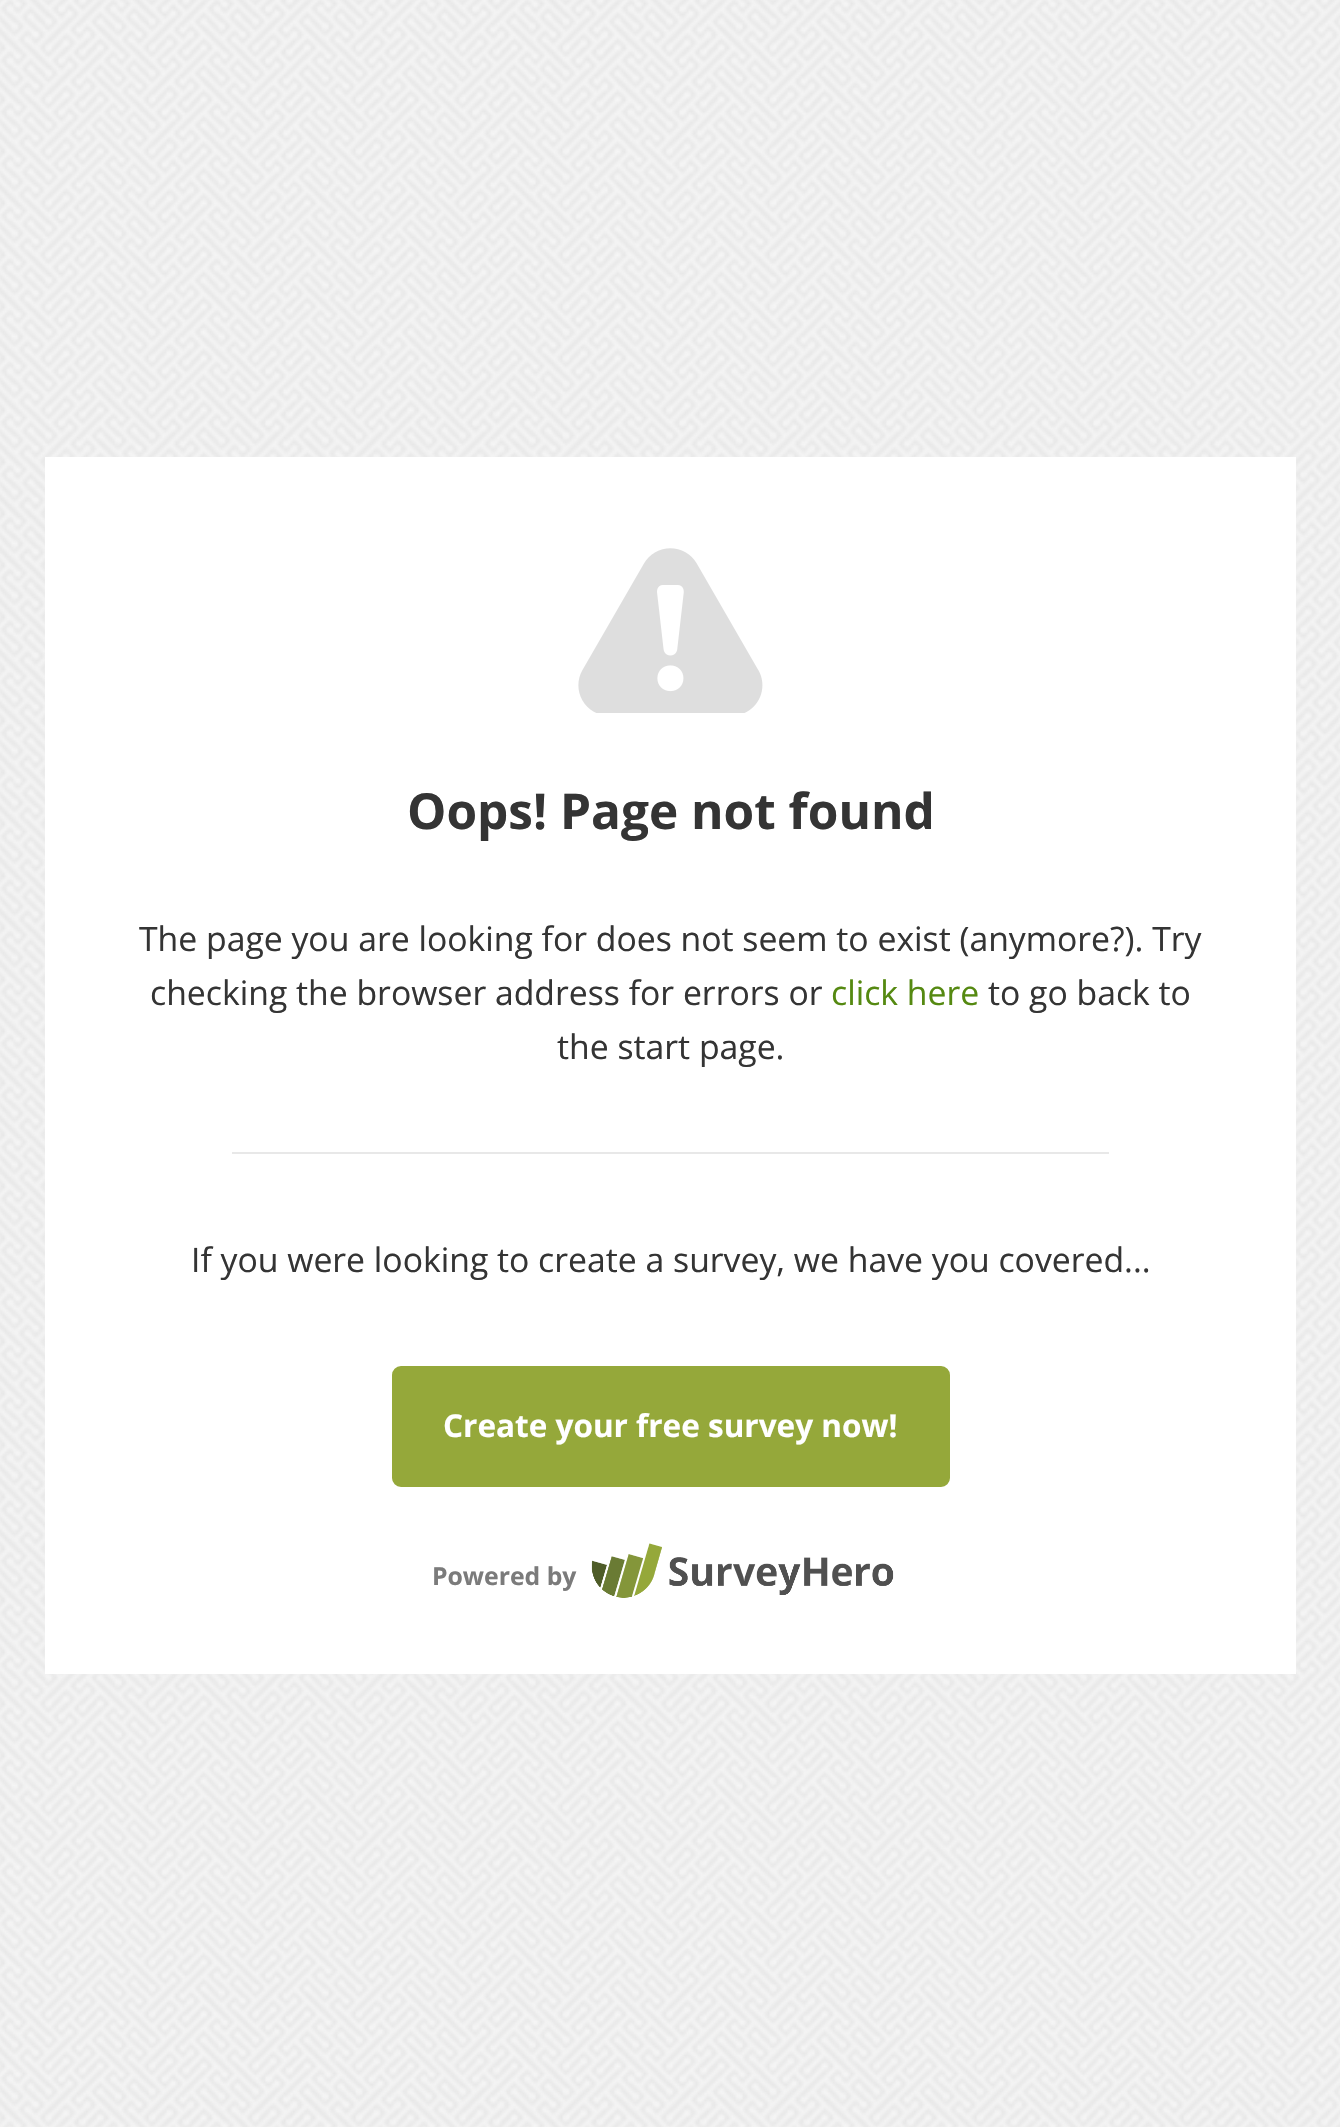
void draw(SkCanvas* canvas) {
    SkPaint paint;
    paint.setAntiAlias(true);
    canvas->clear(0xFFFFFFFF);
    canvas->drawImageRect(SkImages::DeferredFromEncodedData(SkData::MakeFromFileName("img1.png")), SkRect::MakeXYWH(0, 0, 1340, 2127), SkSamplingOptions());
    paint.setColor(0xFFFFFFFF);
    canvas->drawRect(SkRect::MakeXYWH(45, 457, 1251, 1217), paint);
    canvas->drawImageRect(SkImages::DeferredFromEncodedData(SkData::MakeFromFileName("img2.png")), SkRect::MakeXYWH(578, 548, 185, 165), SkSamplingOptions());
    SkFont font1(fontMgr->matchFamilyStyle("Open Sans", SkFontStyle::Bold()), 49.5f);
    font1.setSubpixel(true);
    paint.setColor(0xFF343434);
    canvas->drawString("Oops! Page not found", 407, 829, font1, paint);
    SkFont font2(fontMgr->matchFamilyStyle("Open Sans", SkFontStyle::Normal()), 33.75f);
    font2.setSubpixel(true);
    canvas->drawString("The page you are looking for does not seem to exist (anymore?). Try", 139, 951, font2, paint);
    canvas->drawString("checking the browser address for errors or", 150, 1005, font2, paint);
    paint.setColor(0xFF558911);
    canvas->drawString("click here", 831, 1005, font2, paint);
    paint.setColor(0xFF343434);
    canvas->drawString("to go back to", 988, 1005, font2, paint);
    canvas->drawString("the start page.", 557, 1059, font2, paint);
    paint.setColor(0xFFE8E8E8);
    canvas->drawRect(SkRect::MakeXYWH(232, 1152, 877, 2), paint);
    paint.setColor(0xFF343434);
    canvas->drawString("If you were looking to create a survey, we have you covered...", 191, 1272, font2, paint);
    paint.setColor(0xFF95A83A);
    canvas->drawRoundRect(SkRect::MakeXYWH(393, 1367, 556, 119), 8, 8, paint);
    paint.setStyle(SkPaint::kStroke_Style);
    paint.setStrokeWidth(2);
    canvas->drawRoundRect(SkRect::MakeXYWH(393, 1367, 556, 119), 8, 8, paint);
    SkFont font3(fontMgr->matchFamilyStyle("Open Sans", SkFontStyle::Bold()), 31.5f);
    font3.setSubpixel(true);
    paint.setStyle(SkPaint::kFill_Style);
    paint.setColor(0xFFFFFFFF);
    canvas->drawString("Create your free survey now!", 443, 1437, font3, paint);
    SkFont font4(fontMgr->matchFamilyStyle("Open Sans", SkFontStyle::Bold()), 24.75f);
    font4.setSubpixel(true);
    paint.setColor(0xFF7B7B7B);
    canvas->drawString("Powered by", 432, 1585, font4, paint);
    canvas->drawImageRect(SkImages::DeferredFromEncodedData(SkData::MakeFromFileName("img3.png")), SkRect::MakeXYWH(591, 1543, 303, 55), SkSamplingOptions());
}
